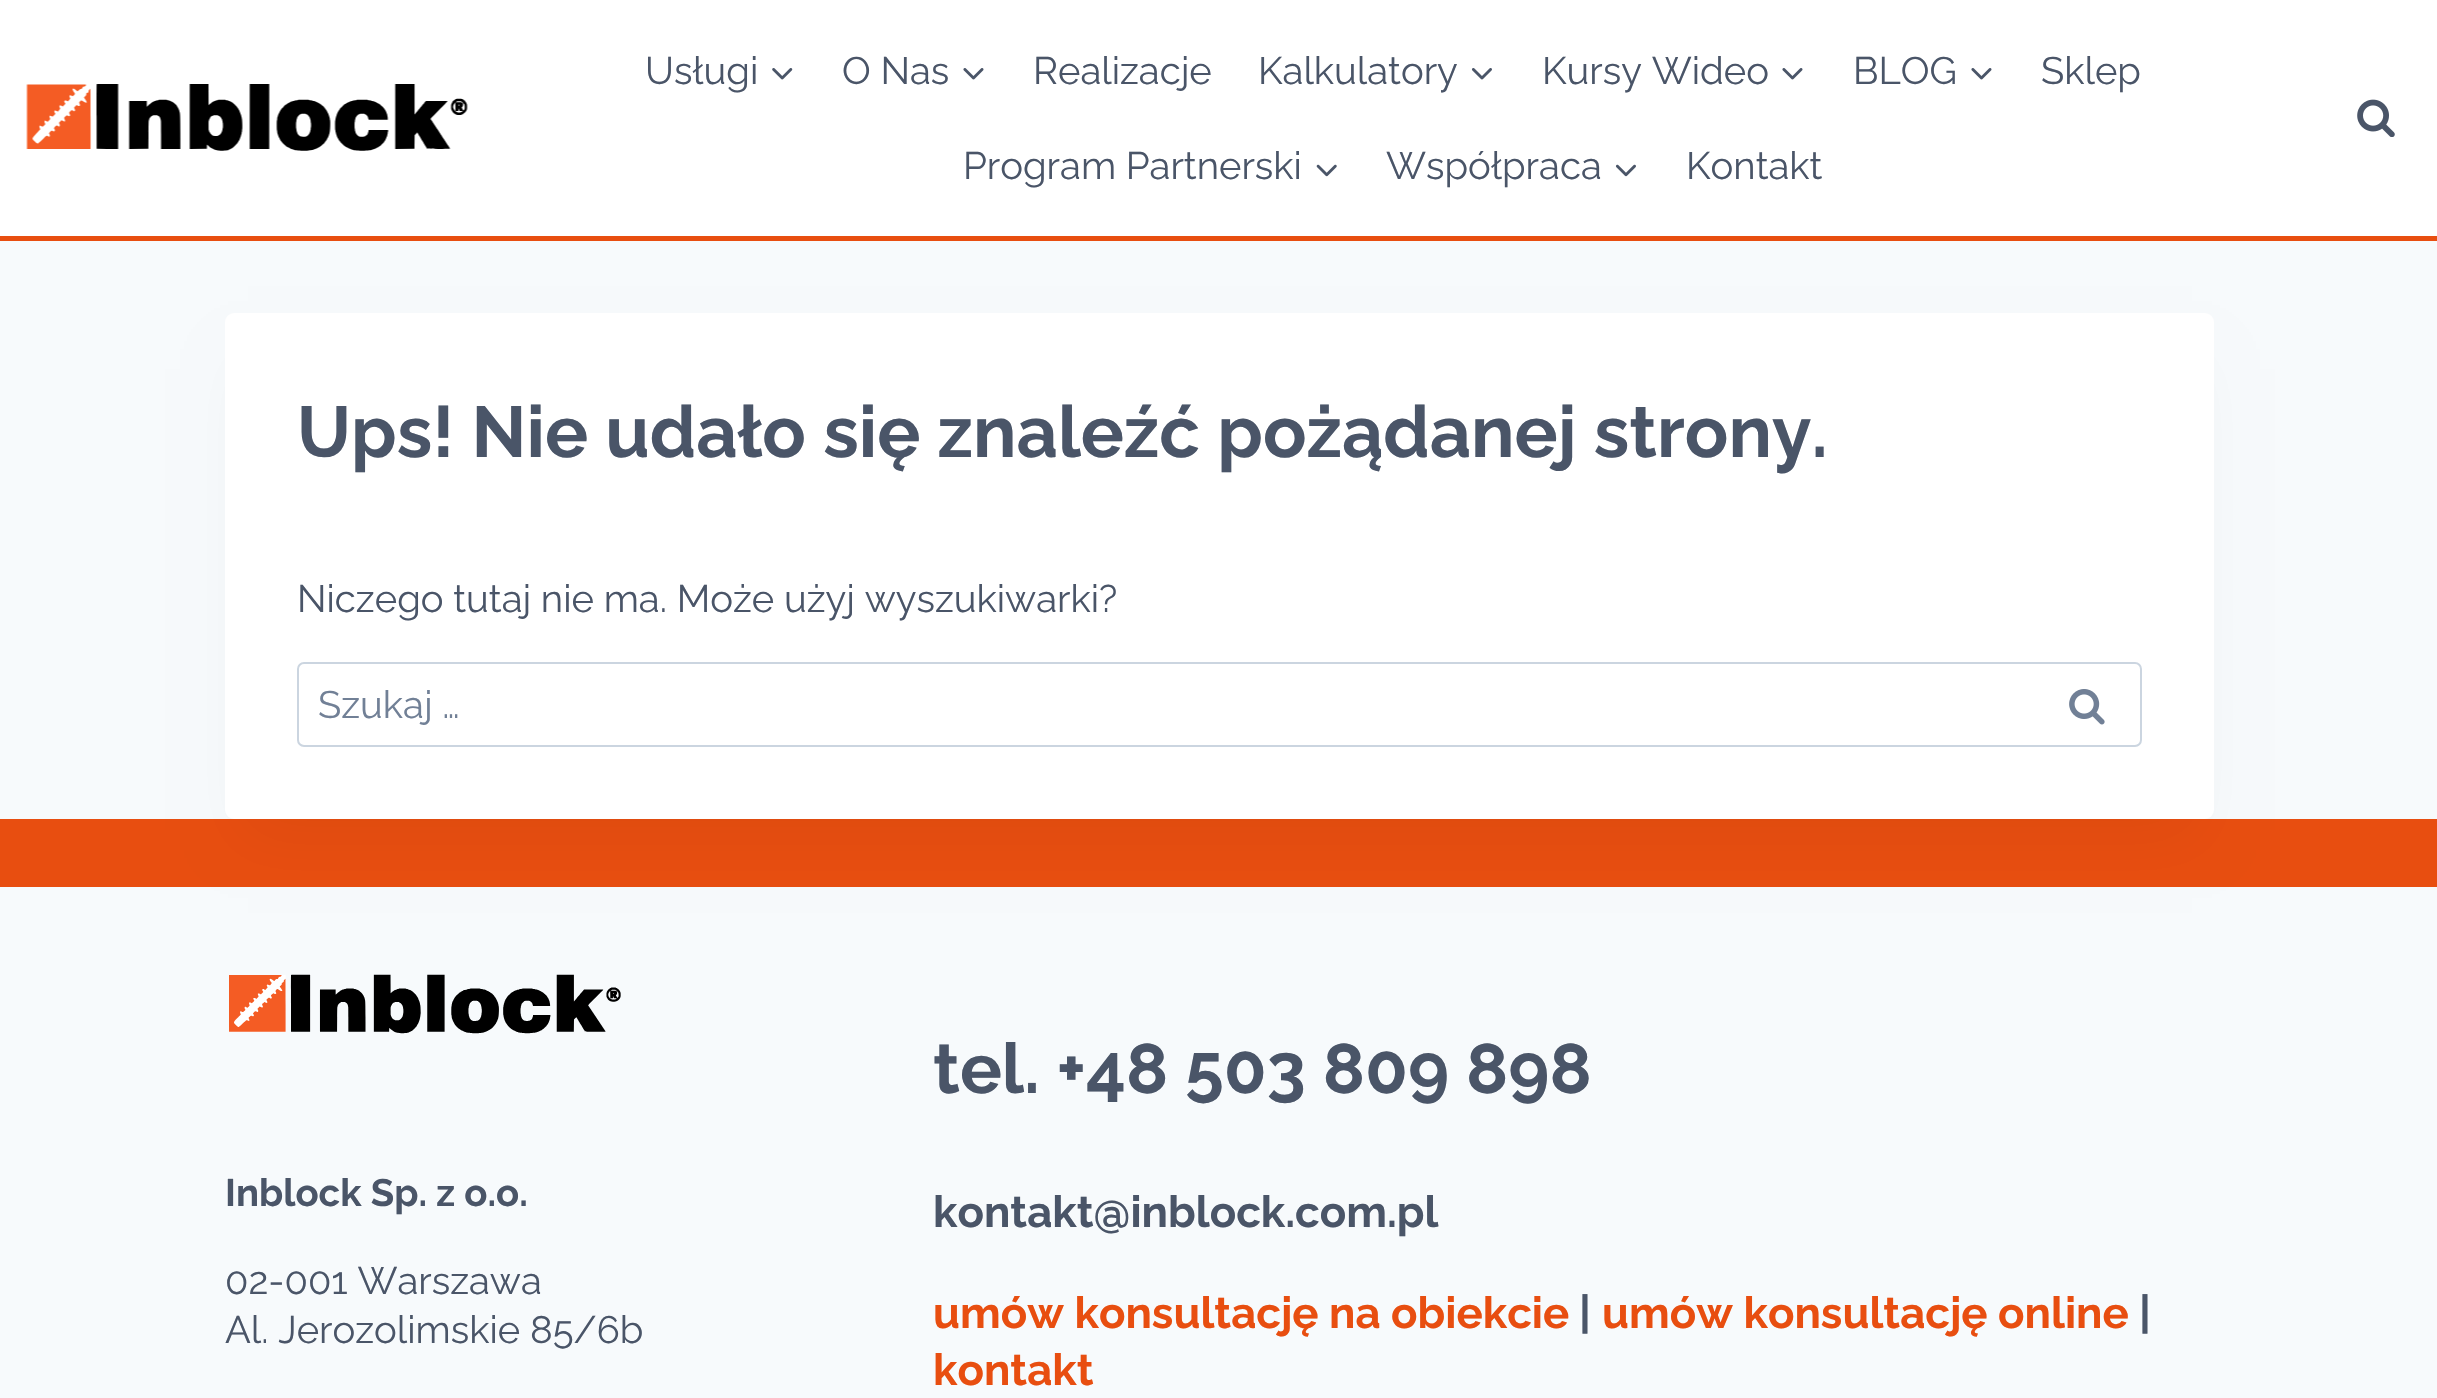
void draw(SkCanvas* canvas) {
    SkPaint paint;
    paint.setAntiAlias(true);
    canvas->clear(0xFFF7FAFC);
    paint.setColor(0xFFFFFFFF);
    canvas->drawRect(SkRect::MakeXYWH(0, 0, 2437, 236), paint);
    paint.setColor(0xFFE84E10);
    canvas->drawRect(SkRect::MakeXYWH(0, 236, 2437, 5), paint);
    canvas->drawImageRect(SkImages::DeferredFromEncodedData(SkData::MakeFromFileName("img1.png")), SkRect::MakeXYWH(26, 84, 442, 67), SkSamplingOptions());
    SkFont font1(fontMgr->matchFamilyStyle("Raleway", SkFontStyle::Normal()), 38.25f);
    font1.setSubpixel(true);
    paint.setColor(0xFF4A5568);
    canvas->drawString("Usługi", 645, 84, font1, paint);
    canvas->drawImageRect(SkImages::DeferredFromEncodedData(SkData::MakeFromFileName("img2.png")), SkRect::MakeXYWH(772, 68, 21, 12), SkSamplingOptions());
    canvas->drawString("O Nas", 842, 84, font1, paint);
    canvas->drawImageRect(SkImages::DeferredFromEncodedData(SkData::MakeFromFileName("img3.png")), SkRect::MakeXYWH(963, 68, 21, 12), SkSamplingOptions());
    canvas->drawString("Realizacje", 1033, 84, font1, paint);
    canvas->drawString("Kalkulatory", 1258, 84, font1, paint);
    canvas->drawImageRect(SkImages::DeferredFromEncodedData(SkData::MakeFromFileName("img4.png")), SkRect::MakeXYWH(1471, 68, 21, 12), SkSamplingOptions());
    canvas->drawString("Kursy Wideo", 1542, 84, font1, paint);
    canvas->drawImageRect(SkImages::DeferredFromEncodedData(SkData::MakeFromFileName("img3.png")), SkRect::MakeXYWH(1782, 68, 21, 12), SkSamplingOptions());
    canvas->drawString("BLOG", 1853, 84, font1, paint);
    canvas->drawImageRect(SkImages::DeferredFromEncodedData(SkData::MakeFromFileName("img3.png")), SkRect::MakeXYWH(1971, 68, 21, 12), SkSamplingOptions());
    canvas->drawString("Sklep", 2041, 84, font1, paint);
    canvas->drawString("Program Partnerski", 963, 179, font1, paint);
    canvas->drawImageRect(SkImages::DeferredFromEncodedData(SkData::MakeFromFileName("img5.png")), SkRect::MakeXYWH(1316, 164, 21, 13), SkSamplingOptions());
    canvas->drawString("Współpraca", 1386, 179, font1, paint);
    canvas->drawImageRect(SkImages::DeferredFromEncodedData(SkData::MakeFromFileName("img6.png")), SkRect::MakeXYWH(1615, 164, 21, 13), SkSamplingOptions());
    canvas->drawString("Kontakt", 1686, 179, font1, paint);
    canvas->drawImageRect(SkImages::DeferredFromEncodedData(SkData::MakeFromFileName("img7.png")), SkRect::MakeXYWH(2357, 99, 38, 38), SkSamplingOptions());
    paint.setColor(0xFFE84E10);
    canvas->drawRect(SkRect::MakeXYWH(0, 819, 2437, 68), paint);
    paint.setColor(0x0D000000);
    paint.setMaskFilter(SkMaskFilter::MakeBlur(kNormal_SkBlurStyle, 28));
    canvas->drawRect(SkRect::MakeXYWH(248, 369, 1944, 461), paint);
    paint.setMaskFilter(nullptr);
    paint.setColor(0xFFFFFFFF);
    canvas->drawRoundRect(SkRect::MakeXYWH(225, 313, 1989, 506), 9, 9, paint);
    SkFont font2(fontMgr->matchFamilyStyle("Raleway", SkFontStyle::Bold()), 72);
    font2.setSubpixel(true);
    paint.setColor(0xFF4A5568);
    canvas->drawString("Ups! Nie udało się znaleźć pożądanej strony.", 297, 457, font2, paint);
    canvas->drawString("Niczego tutaj nie ma. Może użyj wyszukiwarki?", 297, 612, font1, paint);
    paint.setStyle(SkPaint::kStroke_Style);
    paint.setStrokeWidth(2);
    paint.setColor(0xFFCBD5E0);
    canvas->drawRoundRect(SkRect::MakeXYWH(298, 663, 1843, 83), 6, 6, paint);
    paint.setStyle(SkPaint::kFill_Style);
    paint.setColor(0xFF718096);
    canvas->drawString("Szukaj …", 318, 718, font1, paint);
    canvas->drawImageRect(SkImages::DeferredFromEncodedData(SkData::MakeFromFileName("img8.png")), SkRect::MakeXYWH(2069, 689, 36, 36), SkSamplingOptions());
    canvas->drawImageRect(SkImages::DeferredFromEncodedData(SkData::MakeFromFileName("img9.png")), SkRect::MakeXYWH(229, 974, 392, 60), SkSamplingOptions());
    SkFont font3(fontMgr->matchFamilyStyle("Raleway", SkFontStyle::Bold()), 38.25f);
    font3.setSubpixel(true);
    paint.setColor(0xFF4A5568);
    canvas->drawString("Inblock Sp. z o.o.", 225, 1206, font3, paint);
    canvas->drawString("02-001 Warszawa", 225, 1294, font1, paint);
    canvas->drawString("Al. Jerozolimskie 85/6b", 225, 1343, font1, paint);
    SkFont font4(fontMgr->matchFamilyStyle("Raleway", SkFontStyle::Bold()), 70);
    font4.setSubpixel(true);
    canvas->drawString("tel. +48 503 809 898", 933, 1093, font4, paint);
    SkFont font5(fontMgr->matchFamilyStyle("Raleway", SkFontStyle::Bold()), 43.75f);
    font5.setSubpixel(true);
    canvas->drawString("kontakt@inblock.com.pl", 933, 1227, font5, paint);
    paint.setColor(0xFFE84E10);
    canvas->drawString("umów konsultację na obiekcie", 933, 1328, font5, paint);
    paint.setColor(0xFF4A5568);
    canvas->drawString("|", 1579, 1328, font5, paint);
    paint.setColor(0xFFE84E10);
    canvas->drawString("umów konsultację online", 1602, 1328, font5, paint);
    paint.setColor(0xFF4A5568);
    canvas->drawString("|", 2139, 1328, font5, paint);
    paint.setColor(0xFFE84E10);
    canvas->drawString("kontakt", 933, 1385, font5, paint);
}
